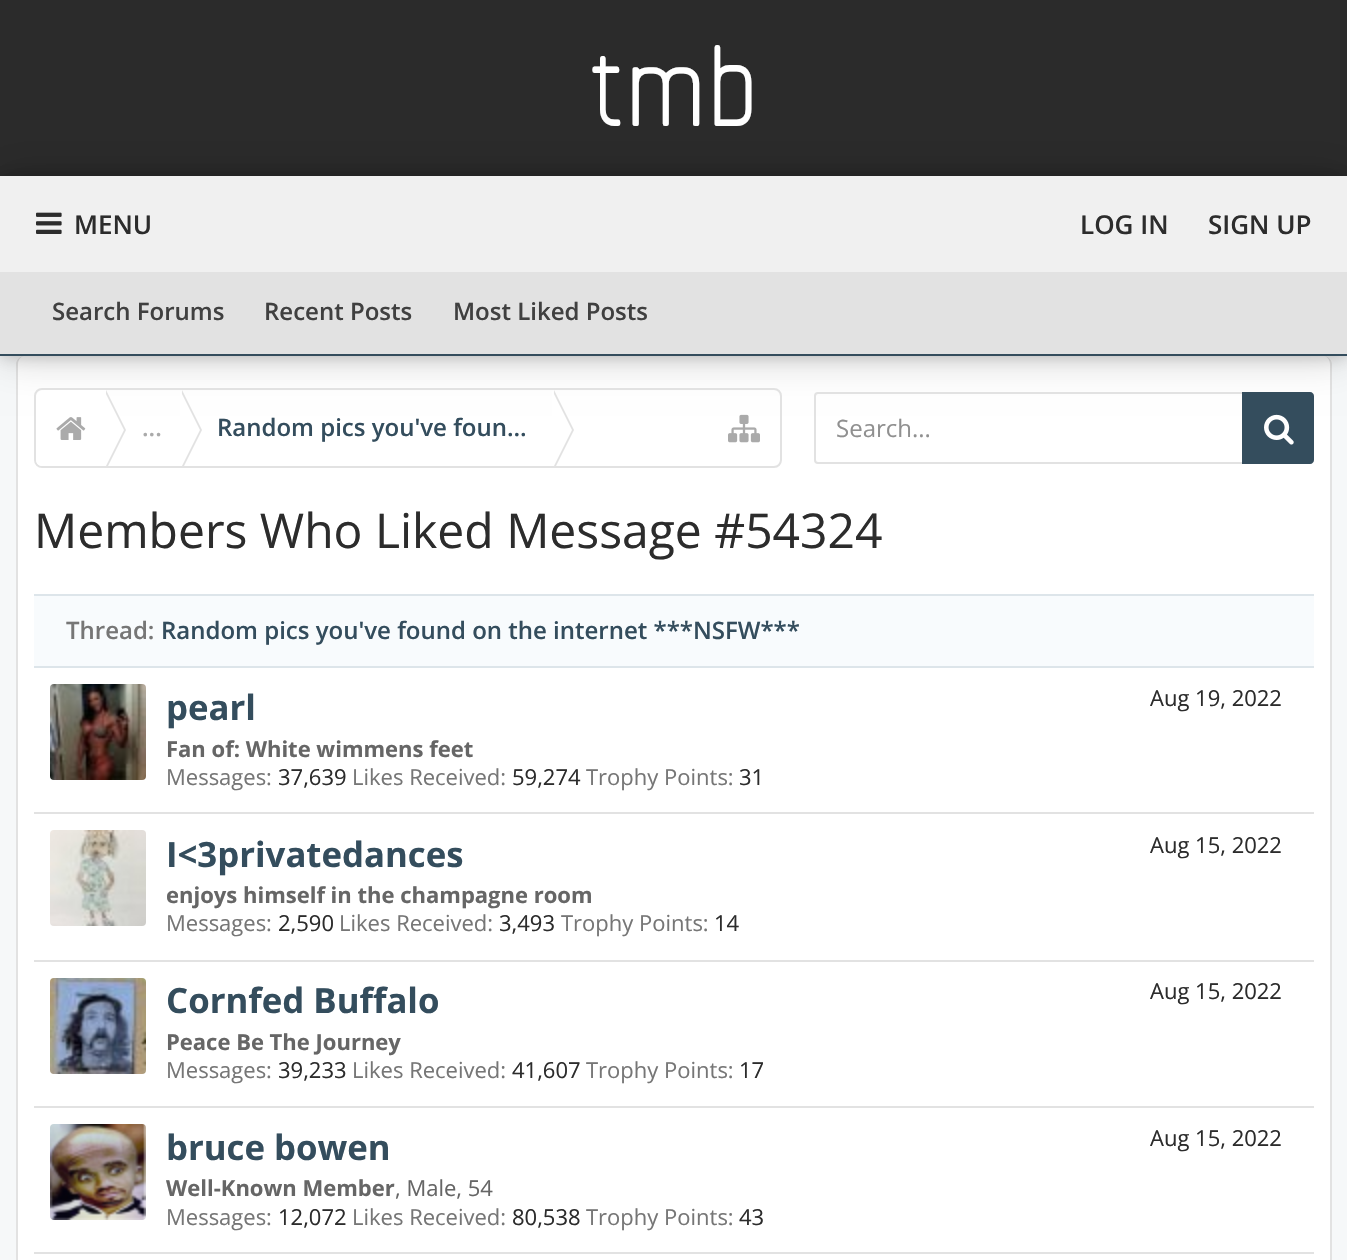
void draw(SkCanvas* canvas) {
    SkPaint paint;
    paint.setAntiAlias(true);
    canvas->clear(0xFFF6F8F9);
    paint.setColor(0xFF2B2B2B);
    canvas->drawRect(SkRect::MakeXYWH(0, 0, 1347, 176), paint);
    SkFont font1(fontMgr->matchFamilyStyle("Chathura", SkFontStyle::Normal()), 200);
    font1.setSubpixel(true);
    paint.setColor(0xFFFFFFFF);
    canvas->drawString("tmb", 588, 126, font1, paint);
    canvas->drawRoundRect(SkRect::MakeXYWH(16, 356, 1316, 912), 8, 8, paint);
    paint.setColor(0xFFE2E2E2);
    canvas->drawPath(SkPathBuilder(SkPathFillType::kEvenOdd).moveTo(24, 356).lineTo(1324, 356).cubicTo(1328, 356, 1332, 360, 1332, 364).lineTo(1332, 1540).cubicTo(1332, 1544, 1328, 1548, 1324, 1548).lineTo(24, 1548).cubicTo(20, 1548, 16, 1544, 16, 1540).lineTo(16, 364).cubicTo(16, 360, 20, 356, 24, 356).close().moveTo(24, 356).lineTo(1324, 356).cubicTo(1327, 356, 1330, 360, 1330, 364).lineTo(1330, 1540).cubicTo(1330, 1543, 1327, 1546, 1324, 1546).lineTo(24, 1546).cubicTo(21, 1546, 18, 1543, 18, 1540).lineTo(18, 364).cubicTo(18, 360, 21, 356, 24, 356).close().detach(), paint);
    paint.setColor(0x30000000);
    paint.setMaskFilter(SkMaskFilter::MakeBlur(kNormal_SkBlurStyle, 20));
    canvas->drawRect(SkRect::MakeXYWH(0, 176, 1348, 180), paint);
    paint.setMaskFilter(nullptr);
    paint.setColor(0x33000000);
    paint.setMaskFilter(SkMaskFilter::MakeBlur(kNormal_SkBlurStyle, 8));
    canvas->drawRect(SkRect::MakeXYWH(0, 176, 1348, 180), paint);
    paint.setMaskFilter(nullptr);
    paint.setColor(0xFF344D5D);
    canvas->drawRect(SkRect::MakeXYWH(0, 354, 1347, 2), paint);
    paint.setColor(0xFFF0F0F0);
    canvas->drawRect(SkRect::MakeXYWH(0, 176, 1347, 96), paint);
    canvas->drawImageRect(SkImages::DeferredFromEncodedData(SkData::MakeFromFileName("img1.png")), SkRect::MakeXYWH(36, 212, 26, 22), SkSamplingOptions());
    SkFont font2(fontMgr->matchFamilyStyle("Open Sans", SkFontStyle(600, SkFontStyle::kNormal_Width, SkFontStyle::kUpright_Slant)), 26);
    font2.setSubpixel(true);
    paint.setColor(0xFF2C2C2C);
    canvas->drawString("MENU", 74, 234, font2, paint);
    paint.setColor(0xFFE2E2E2);
    canvas->drawRect(SkRect::MakeXYWH(0, 272, 1347, 82), paint);
    SkFont font3(fontMgr->matchFamilyStyle("Open Sans", SkFontStyle(600, SkFontStyle::kNormal_Width, SkFontStyle::kUpright_Slant)), 24);
    font3.setSubpixel(true);
    paint.setColor(0xFF404040);
    canvas->drawString("Search Forums", 52, 320, font3, paint);
    canvas->drawString("Recent Posts", 264, 320, font3, paint);
    canvas->drawString("Most Liked Posts", 453, 320, font3, paint);
    paint.setColor(0xFF2C2C2C);
    canvas->drawString("LOG IN", 1080, 234, font2, paint);
    canvas->drawString("SIGN UP", 1208, 234, font2, paint);
    paint.setStyle(SkPaint::kStroke_Style);
    paint.setStrokeWidth(2);
    paint.setColor(0xFFE2E2E2);
    canvas->drawRoundRect(SkRect::MakeXYWH(35, 389, 746, 78), 7, 7, paint);
    canvas->save();
    canvas->clipPath(SkPathBuilder().moveTo(42, 390).lineTo(774, 390).cubicTo(777.5f, 390, 780, 392.5f, 780, 396).lineTo(780, 460).cubicTo(780, 463.5f, 777.5f, 466, 774, 466).lineTo(42, 466).cubicTo(38.5f, 466, 36, 463.5f, 36, 460).lineTo(36, 396).cubicTo(36, 392.5f, 38.5f, 390, 42, 390).close().detach(), true);
    paint.setStyle(SkPaint::kFill_Style);
    paint.setColor(0xFFFFFFFF);
    canvas->drawPath(SkPathBuilder().moveTo(44, 390).lineTo(106, 390).lineTo(106, 468).lineTo(44, 468).cubicTo(39.5f, 468, 36, 464.5f, 36, 460).lineTo(36, 398).cubicTo(36, 393.5f, 39.5f, 390, 44, 390).close().detach(), paint);
    canvas->restore();
    canvas->drawImageRect(SkImages::DeferredFromEncodedData(SkData::MakeFromFileName("img2.png")), SkRect::MakeXYWH(56, 417, 30, 23), SkSamplingOptions());
    paint.setColor(0xFFE2E2E2);
    canvas->drawPath(SkPathBuilder().moveTo(108, 466).lineTo(106, 466).lineTo(106, 390).lineTo(126, 430).close().detach(), paint);
    paint.setColor(0xFFFFFFFF);
    canvas->drawPath(SkPathBuilder().moveTo(106, 466).lineTo(104, 466).lineTo(104, 390).lineTo(124, 430).close().detach(), paint);
    paint.setColor(0xFFAAAAAA);
    canvas->drawString("...", 142, 436, font3, paint);
    paint.setColor(0xFFE2E2E2);
    canvas->drawPath(SkPathBuilder().moveTo(184, 466).lineTo(182, 466).lineTo(182, 390).lineTo(202, 430).close().detach(), paint);
    paint.setColor(0xFFFFFFFF);
    canvas->drawPath(SkPathBuilder().moveTo(182, 466).lineTo(180, 466).lineTo(180, 390).lineTo(200, 430).close().detach(), paint);
    paint.setColor(0xFF344D5D);
    canvas->drawString("Random pics you've foun…", 217, 436, font3, paint);
    paint.setColor(0xFFE2E2E2);
    canvas->drawPath(SkPathBuilder().moveTo(556, 466).lineTo(554, 466).lineTo(554, 390).lineTo(574, 430).close().detach(), paint);
    paint.setColor(0xFFFFFFFF);
    canvas->drawPath(SkPathBuilder().moveTo(554, 466).lineTo(552, 466).lineTo(552, 390).lineTo(572, 430).close().detach(), paint);
    canvas->drawImageRect(SkImages::DeferredFromEncodedData(SkData::MakeFromFileName("img3.png")), SkRect::MakeXYWH(728, 414, 32, 29), SkSamplingOptions());
    paint.setStyle(SkPaint::kStroke_Style);
    paint.setColor(0xFFE2E2E2);
    canvas->drawRoundRect(SkRect::MakeXYWH(815, 393, 498, 70), 3, 3, paint);
    SkFont font4(fontMgr->matchFamilyStyle("Open Sans", SkFontStyle::Normal()), 24);
    font4.setSubpixel(true);
    paint.setStyle(SkPaint::kFill_Style);
    paint.setColor(0xFF909090);
    canvas->drawString("Search...", 836, 437, font4, paint);
    paint.setColor(0xFF344D5D);
    canvas->drawPath(SkPathBuilder().moveTo(1242, 392).lineTo(1310, 392).cubicTo(1312, 392, 1314, 394, 1314, 396).lineTo(1314, 460).cubicTo(1314, 462, 1312, 464, 1310, 464).lineTo(1242, 464).close().detach(), paint);
    canvas->drawImageRect(SkImages::DeferredFromEncodedData(SkData::MakeFromFileName("img4.png")), SkRect::MakeXYWH(1264, 414, 30, 31), SkSamplingOptions());
    SkFont font5(fontMgr->matchFamilyStyle("Open Sans", SkFontStyle::Normal()), 48);
    font5.setSubpixel(true);
    paint.setColor(0xFF2C2C2C);
    canvas->drawString("Members Who Liked Message #54324", 34, 548, font5, paint);
    paint.setColor(0xFFF8FBFD);
    canvas->drawRect(SkRect::MakeXYWH(34, 596, 1280, 70), paint);
    paint.setColor(0xFFDDE5EA);
    canvas->drawRect(SkRect::MakeXYWH(34, 594, 1280, 2), paint);
    canvas->drawRect(SkRect::MakeXYWH(34, 666, 1280, 2), paint);
    paint.setColor(0xFF767676);
    canvas->drawString("Thread:", 66, 639, font3, paint);
    paint.setColor(0xFF344D5D);
    canvas->drawString("Random pics you've found on the internet ***NSFW***", 161, 639, font3, paint);
    paint.setColor(0xFFE2E2E2);
    canvas->drawRect(SkRect::MakeXYWH(34, 812, 1280, 2), paint);
    canvas->drawImageRect(SkImages::DeferredFromEncodedData(SkData::MakeFromFileName("img5.png")), SkRect::MakeXYWH(50, 684, 96, 96), SkSamplingOptions());
    SkFont font6(fontMgr->matchFamilyStyle("Open Sans", SkFontStyle::Bold()), 34.75f);
    font6.setSubpixel(true);
    paint.setColor(0xFF344D5D);
    canvas->drawString("pearl", 166, 720, font6, paint);
    SkFont font7(fontMgr->matchFamilyStyle("Open Sans", SkFontStyle::Bold()), 22);
    font7.setSubpixel(true);
    paint.setColor(0xFF666666);
    canvas->drawString("Fan of: White wimmens feet", 166, 757, font7, paint);
    SkFont font8(fontMgr->matchFamilyStyle("Open Sans", SkFontStyle::Normal()), 22);
    font8.setSubpixel(true);
    paint.setColor(0xFF767676);
    canvas->drawString("Messages:", 166, 785, font8, paint);
    paint.setColor(0xFF2C2C2C);
    canvas->drawString("37,639", 278, 785, font8, paint);
    paint.setColor(0xFF767676);
    canvas->drawString("Likes Received:", 352, 785, font8, paint);
    paint.setColor(0xFF2C2C2C);
    canvas->drawString("59,274", 512, 785, font8, paint);
    paint.setColor(0xFF767676);
    canvas->drawString("Trophy Points:", 586, 785, font8, paint);
    paint.setColor(0xFF2C2C2C);
    canvas->drawString("31", 739, 785, font8, paint);
    canvas->drawString("Aug 19, 2022", 1150, 706, font8, paint);
    paint.setColor(0xFFE2E2E2);
    canvas->drawRect(SkRect::MakeXYWH(34, 960, 1280, 2), paint);
    canvas->drawImageRect(SkImages::DeferredFromEncodedData(SkData::MakeFromFileName("img6.png")), SkRect::MakeXYWH(50, 830, 96, 96), SkSamplingOptions());
    paint.setColor(0xFF344D5D);
    canvas->drawString("I<3privatedances", 166, 867, font6, paint);
    paint.setColor(0xFF666666);
    canvas->drawString("enjoys himself in the champagne room", 166, 903, font7, paint);
    paint.setColor(0xFF767676);
    canvas->drawString("Messages:", 166, 931, font8, paint);
    paint.setColor(0xFF2C2C2C);
    canvas->drawString("2,590", 278, 931, font8, paint);
    paint.setColor(0xFF767676);
    canvas->drawString("Likes Received:", 339, 931, font8, paint);
    paint.setColor(0xFF2C2C2C);
    canvas->drawString("3,493", 499, 931, font8, paint);
    paint.setColor(0xFF767676);
    canvas->drawString("Trophy Points:", 561, 931, font8, paint);
    paint.setColor(0xFF2C2C2C);
    canvas->drawString("14", 714, 931, font8, paint);
    canvas->drawString("Aug 15, 2022", 1150, 853, font8, paint);
    paint.setColor(0xFFE2E2E2);
    canvas->drawRect(SkRect::MakeXYWH(34, 1106, 1280, 2), paint);
    canvas->drawImageRect(SkImages::DeferredFromEncodedData(SkData::MakeFromFileName("img7.png")), SkRect::MakeXYWH(50, 978, 96, 96), SkSamplingOptions());
    paint.setColor(0xFF344D5D);
    canvas->drawString("Cornfed Buffalo", 166, 1013, font6, paint);
    paint.setColor(0xFF666666);
    canvas->drawString("Peace Be The Journey", 166, 1050, font7, paint);
    paint.setColor(0xFF767676);
    canvas->drawString("Messages:", 166, 1078, font8, paint);
    paint.setColor(0xFF2C2C2C);
    canvas->drawString("39,233", 278, 1078, font8, paint);
    paint.setColor(0xFF767676);
    canvas->drawString("Likes Received:", 352, 1078, font8, paint);
    paint.setColor(0xFF2C2C2C);
    canvas->drawString("41,607", 512, 1078, font8, paint);
    paint.setColor(0xFF767676);
    canvas->drawString("Trophy Points:", 586, 1078, font8, paint);
    paint.setColor(0xFF2C2C2C);
    canvas->drawString("17", 739, 1078, font8, paint);
    canvas->drawString("Aug 15, 2022", 1150, 999, font8, paint);
    paint.setColor(0xFFE2E2E2);
    canvas->drawRect(SkRect::MakeXYWH(34, 1252, 1280, 2), paint);
    canvas->drawImageRect(SkImages::DeferredFromEncodedData(SkData::MakeFromFileName("img8.png")), SkRect::MakeXYWH(50, 1124, 96, 96), SkSamplingOptions());
    paint.setColor(0xFF344D5D);
    canvas->drawString("bruce bowen", 166, 1160, font6, paint);
    paint.setColor(0xFF666666);
    canvas->drawString("Well-Known Member", 166, 1196, font7, paint);
    canvas->drawString(", Male, 54", 395, 1196, font8, paint);
    paint.setColor(0xFF767676);
    canvas->drawString("Messages:", 166, 1225, font8, paint);
    paint.setColor(0xFF2C2C2C);
    canvas->drawString("12,072", 278, 1225, font8, paint);
    paint.setColor(0xFF767676);
    canvas->drawString("Likes Received:", 352, 1225, font8, paint);
    paint.setColor(0xFF2C2C2C);
    canvas->drawString("80,538", 512, 1225, font8, paint);
    paint.setColor(0xFF767676);
    canvas->drawString("Trophy Points:", 586, 1225, font8, paint);
    paint.setColor(0xFF2C2C2C);
    canvas->drawString("43", 739, 1225, font8, paint);
    canvas->drawString("Aug 15, 2022", 1150, 1146, font8, paint);
}
